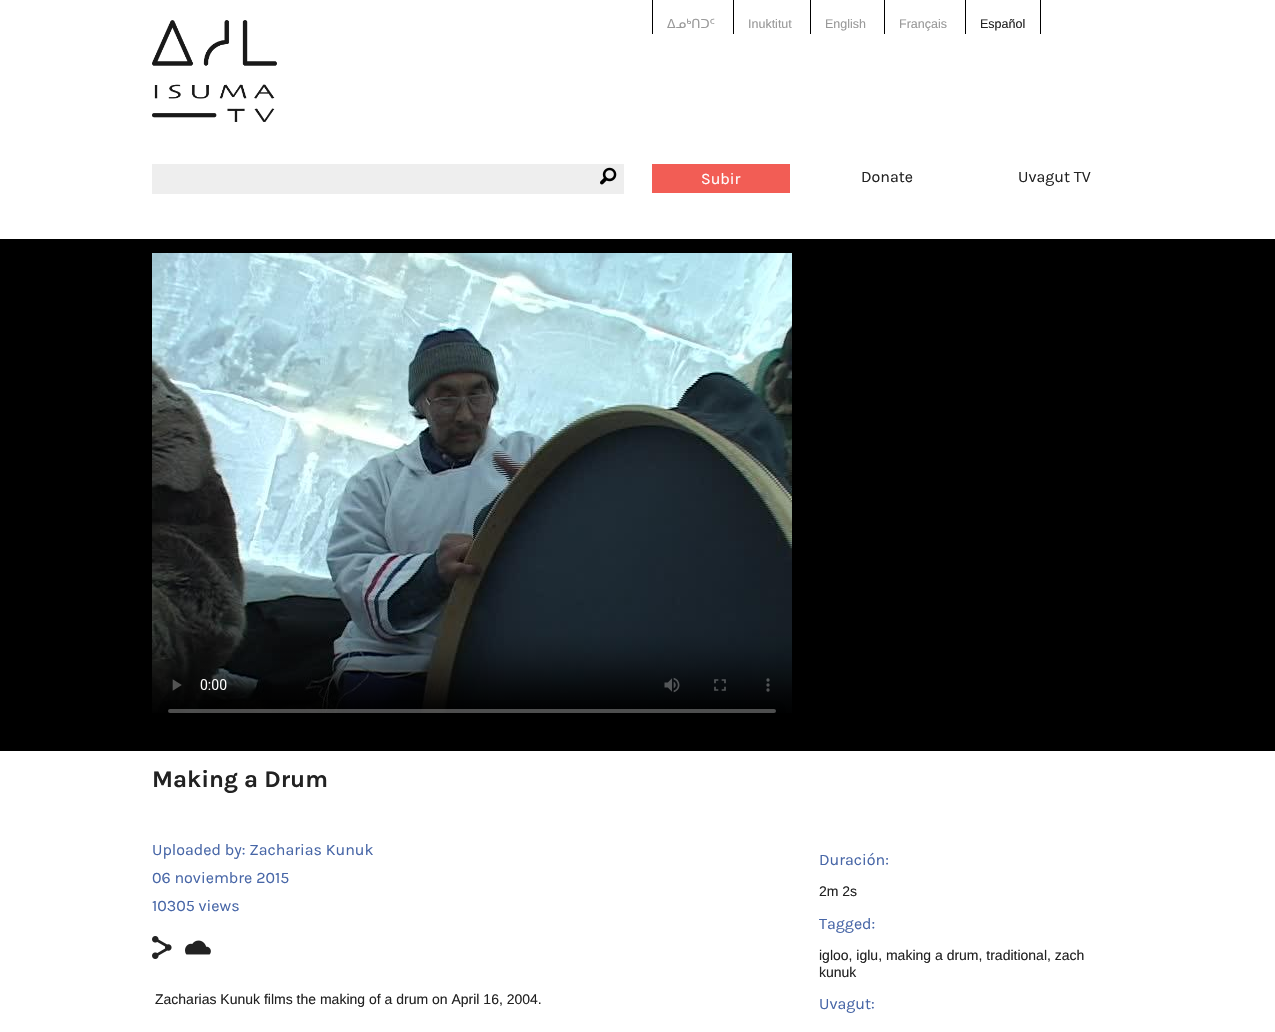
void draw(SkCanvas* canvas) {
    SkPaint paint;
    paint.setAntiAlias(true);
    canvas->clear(0xFFFFFFFF);
    canvas->drawImageRect(SkImages::DeferredFromEncodedData(SkData::MakeFromFileName("img1.png")), SkRect::MakeXYWH(152, 20, 125, 102), SkSamplingOptions());
    paint.setColor(0xFF000000);
    canvas->drawRect(SkRect::MakeXYWH(652, 0, 1, 34), paint);
    SkFont font1(fontMgr->matchFamilyStyle("DejaVu Sans", SkFontStyle::Normal()), 12.5f);
    font1.setSubpixel(true);
    paint.setColor(0xFF999999);
    canvas->drawString("ᐃᓄᒃᑎᑐᑦ", 667, 28, font1, paint);
    paint.setColor(0xFF000000);
    canvas->drawRect(SkRect::MakeXYWH(733, 0, 1, 34), paint);
    SkFont font2(fontMgr->matchFamilyStyle("Liberation Sans", SkFontStyle::Normal()), 12.5f);
    font2.setSubpixel(true);
    paint.setColor(0xFF999999);
    canvas->drawString("Inuktitut", 748, 28, font2, paint);
    paint.setColor(0xFF000000);
    canvas->drawRect(SkRect::MakeXYWH(810, 0, 1, 34), paint);
    paint.setColor(0xFF999999);
    canvas->drawString("English", 825, 28, font2, paint);
    paint.setColor(0xFF000000);
    canvas->drawRect(SkRect::MakeXYWH(884, 0, 1, 34), paint);
    paint.setColor(0xFF999999);
    canvas->drawString("Français", 899, 28, font2, paint);
    paint.setColor(0xFF000000);
    canvas->drawRect(SkRect::MakeXYWH(1040, 0, 1, 34), paint);
    canvas->drawRect(SkRect::MakeXYWH(965, 0, 1, 34), paint);
    paint.setColor(0xFF222222);
    canvas->drawString("Español", 980, 28, font2, paint);
    paint.setColor(0xFFEEEEEE);
    canvas->drawRect(SkRect::MakeXYWH(152, 164, 472, 30), paint);
    canvas->drawImageRect(SkImages::DeferredFromEncodedData(SkData::MakeFromFileName("img2.png")), SkRect::MakeXYWH(600, 167, 17, 18), SkSamplingOptions());
    paint.setColor(0xFFF25D55);
    canvas->drawRect(SkRect::MakeXYWH(652, 164, 138, 29), paint);
    SkFont font3(fontMgr->matchFamilyStyle("Karla", SkFontStyle::Normal()), 16);
    font3.setSubpixel(true);
    paint.setColor(0xFFFFFFFF);
    canvas->drawString("Subir", 701, 184, font3, paint);
    paint.setColor(0xFF222222);
    canvas->drawString("Donate", 861, 182, font3, paint);
    canvas->drawString("Uvagut TV", 1018, 182, font3, paint);
    paint.setColor(0xFF000000);
    canvas->drawRect(SkRect::MakeXYWH(0, 239, 1275, 512), paint);
    canvas->drawImageRect(SkImages::DeferredFromEncodedData(SkData::MakeFromFileName("img3.png")), SkRect::MakeXYWH(152, 253, 640, 460), SkSamplingOptions());
    SkFont font4(fontMgr->matchFamilyStyle("Karla", SkFontStyle::Bold()), 24);
    font4.setSubpixel(true);
    paint.setColor(0xFF222222);
    canvas->drawString("Making a Drum", 152, 787, font4, paint);
    paint.setColor(0xFF4766A7);
    canvas->drawString("Uploaded by: Zacharias Kunuk", 152, 855, font3, paint);
    canvas->drawString("06 noviembre 2015", 152, 883, font3, paint);
    canvas->drawString("10305 views", 152, 911, font3, paint);
    canvas->drawImageRect(SkImages::DeferredFromEncodedData(SkData::MakeFromFileName("img4.png")), SkRect::MakeXYWH(152, 936, 20, 23), SkSamplingOptions());
    canvas->drawImageRect(SkImages::DeferredFromEncodedData(SkData::MakeFromFileName("img5.png")), SkRect::MakeXYWH(185, 940, 26, 15), SkSamplingOptions());
    SkFont font5(fontMgr->matchFamilyStyle("Liberation Sans", SkFontStyle::Normal()), 14);
    font5.setSubpixel(true);
    paint.setColor(0xFF222222);
    canvas->drawString("Zacharias Kunuk films the making of a drum on April 16, 2004.", 155, 1004, font5, paint);
    paint.setColor(0xFF4766A7);
    canvas->drawString("Duración:", 819, 865, font3, paint);
    paint.setColor(0xFF222222);
    canvas->drawString("2m 2s", 819, 896, font5, paint);
    paint.setColor(0xFF4766A7);
    canvas->drawString("Tagged:", 819, 929, font3, paint);
    paint.setColor(0xFF222222);
    canvas->drawString("igloo, iglu, making a drum, traditional, zach", 819, 960, font5, paint);
    canvas->drawString("kunuk", 819, 977, font5, paint);
    paint.setColor(0xFF4766A7);
    canvas->drawString("Uvagut:", 819, 1009, font3, paint);
}
